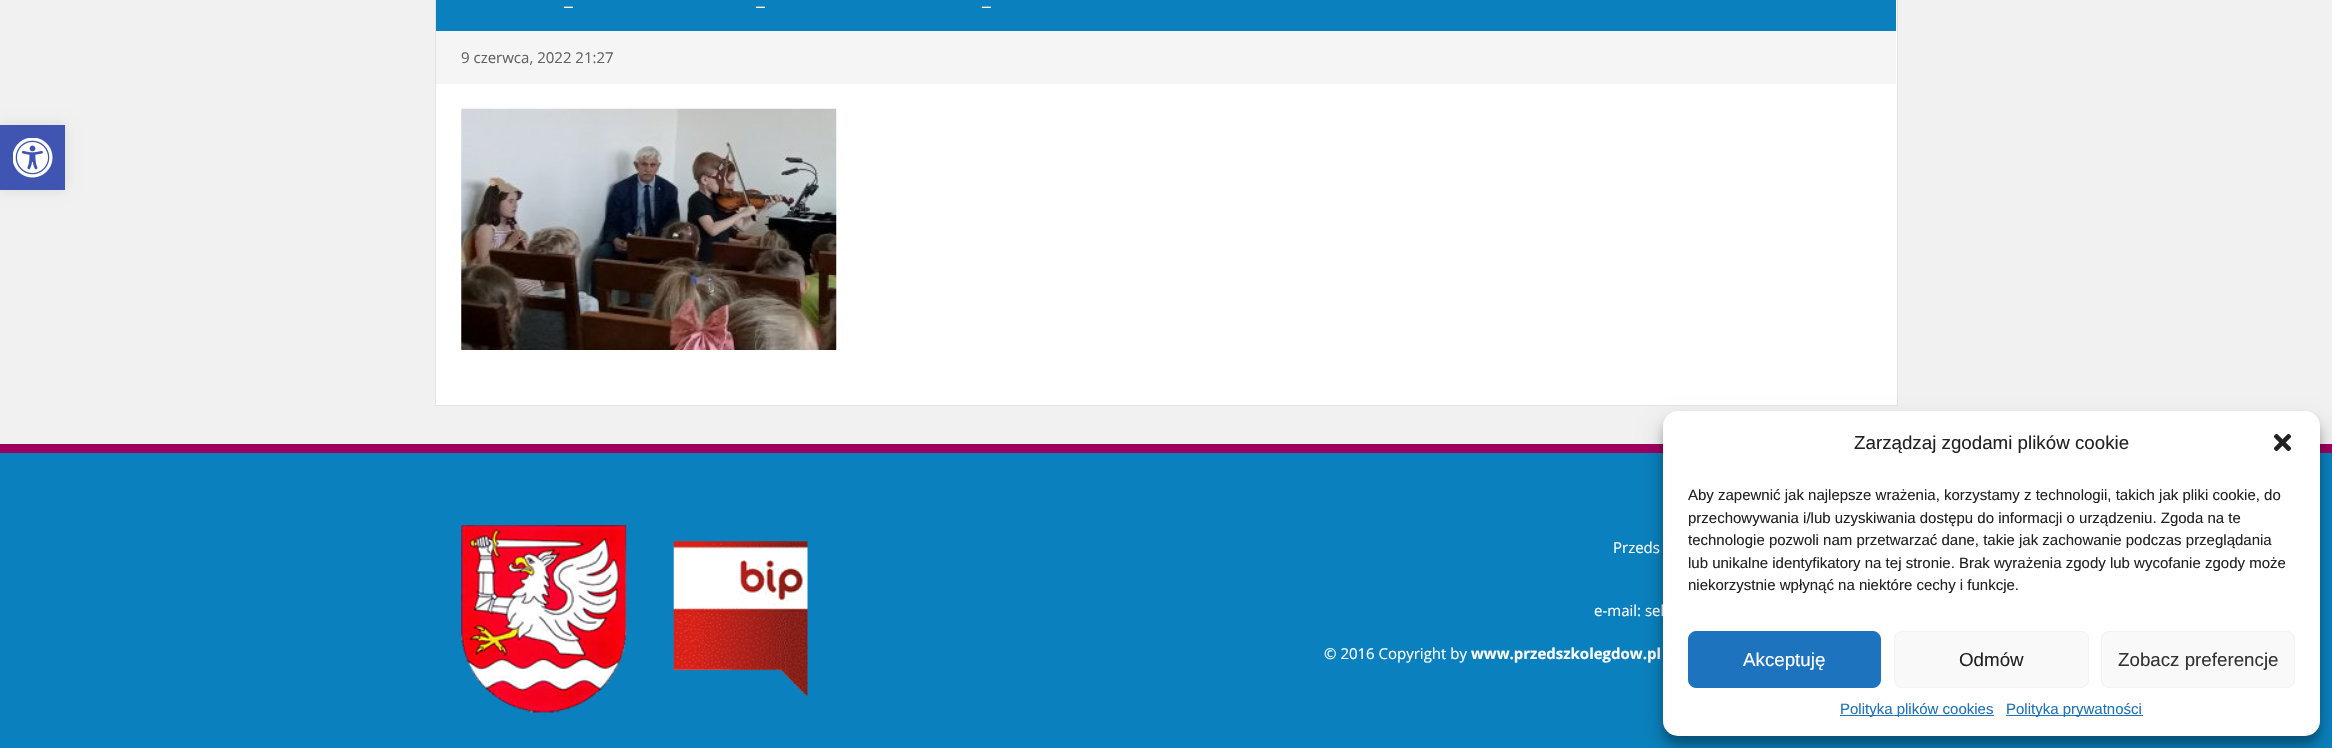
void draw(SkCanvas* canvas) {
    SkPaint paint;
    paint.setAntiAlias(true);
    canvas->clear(0xFF0A81BE);
    paint.setColor(0xFFF1F1F1);
    canvas->drawRect(SkRect::MakeXYWH(0, 0, 2332, 444), paint);
    paint.setColor(0xFFFFFFFF);
    canvas->drawRect(SkRect::MakeXYWH(435.5f, -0.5f, 1462, 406), paint);
    paint.setStyle(SkPaint::kStroke_Style);
    paint.setStrokeWidth(1);
    paint.setColor(0xFFE3E3E3);
    canvas->drawRect(SkRect::MakeXYWH(435.5f, -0.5f, 1462, 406), paint);
    paint.setStyle(SkPaint::kFill_Style);
    paint.setColor(0xFF0A81BE);
    canvas->drawRect(SkRect::MakeXYWH(436, 0, 1460, 31), paint);
    SkFont font1(fontMgr->matchFamilyStyle("Open Sans", SkFontStyle::Normal()), 20);
    font1.setSubpixel(true);
    paint.setColor(0xFFFFFDE4);
    canvas->drawString("_", 564, 5, font1, paint);
    canvas->drawString("_", 756, 5, font1, paint);
    canvas->drawString("_", 982, 5, font1, paint);
    paint.setColor(0xFFF5F5F5);
    canvas->drawRect(SkRect::MakeXYWH(436, 31, 1460, 53), paint);
    SkFont font2(fontMgr->matchFamilyStyle("Open Sans", SkFontStyle::Normal()), 15);
    font2.setSubpixel(true);
    paint.setColor(0xFF626262);
    canvas->drawString("9 czerwca, 2022 21:27", 461, 63, font2, paint);
    canvas->drawImageRect(SkImages::DeferredFromEncodedData(SkData::MakeFromFileName("img1.png")), SkRect::MakeXYWH(461, 108, 376, 242), SkSamplingOptions());
    paint.setColor(0x1A000000);
    paint.setMaskFilter(SkMaskFilter::MakeBlur(kNormal_SkBlurStyle, 6));
    canvas->drawRect(SkRect::MakeXYWH(0, 125, 65, 65), paint);
    paint.setMaskFilter(nullptr);
    paint.setColor(0xFF4054B2);
    canvas->drawRect(SkRect::MakeXYWH(0, 125, 65, 65), paint);
    canvas->drawImageRect(SkImages::DeferredFromEncodedData(SkData::MakeFromFileName("img2.png")), SkRect::MakeXYWH(13, 138, 40, 40), SkSamplingOptions());
    paint.setColor(0xFF9E005D);
    canvas->drawRect(SkRect::MakeXYWH(0, 444, 2332, 9), paint);
    canvas->drawImageRect(SkImages::DeferredFromEncodedData(SkData::MakeFromFileName("img3.png")), SkRect::MakeXYWH(461, 525, 166, 188), SkSamplingOptions());
    canvas->drawImageRect(SkImages::DeferredFromEncodedData(SkData::MakeFromFileName("img4.png")), SkRect::MakeXYWH(673, 541, 135, 156), SkSamplingOptions());
    paint.setColor(0xFFFFFFFF);
    canvas->drawString("Przeds", 1613, 553, font2, paint);
    canvas->drawString("e-mail: sek", 1594, 616, font2, paint);
    canvas->drawString("© 2016 Copyright by", 1324, 659, font2, paint);
    SkFont font3(fontMgr->matchFamilyStyle("Open Sans", SkFontStyle::Bold()), 15);
    font3.setSubpixel(true);
    canvas->drawString("www.przedszkolegdow.pl", 1471, 659, font3, paint);
    paint.setColor(0x3B000000);
    paint.setMaskFilter(SkMaskFilter::MakeBlur(kNormal_SkBlurStyle, 4));
    canvas->drawRoundRect(SkRect::MakeXYWH(1663, 419, 657, 325), 15, 15, paint);
    paint.setMaskFilter(nullptr);
    paint.setColor(0x30000000);
    paint.setMaskFilter(SkMaskFilter::MakeBlur(kNormal_SkBlurStyle, 12.5f));
    canvas->drawRoundRect(SkRect::MakeXYWH(1663, 424, 657, 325), 15, 15, paint);
    paint.setMaskFilter(nullptr);
    paint.setColor(0xFFFFFFFF);
    canvas->drawRoundRect(SkRect::MakeXYWH(1663, 411, 657, 325), 15, 15, paint);
    SkFont font4(fontMgr->matchFamilyStyle("Liberation Sans", SkFontStyle::Normal()), 18.75f);
    font4.setSubpixel(true);
    paint.setColor(0xFF222222);
    canvas->drawString("Zarządzaj zgodami plików cookie", 1854, 449, font4, paint);
    canvas->drawImageRect(SkImages::DeferredFromEncodedData(SkData::MakeFromFileName("img5.png")), SkRect::MakeXYWH(2273, 433, 19, 19), SkSamplingOptions());
    SkFont font5(fontMgr->matchFamilyStyle("Liberation Sans", SkFontStyle::Normal()), 15);
    font5.setSubpixel(true);
    canvas->drawString("Aby zapewnić jak najlepsze wrażenia, korzystamy z technologii, takich jak pliki cookie, do", 1688, 500, font5, paint);
    canvas->drawString("przechowywania i/lub uzyskiwania dostępu do informacji o urządzeniu. Zgoda na te", 1688, 523, font5, paint);
    canvas->drawString("technologie pozwoli nam przetwarzać dane, takie jak zachowanie podczas przeglądania", 1688, 545, font5, paint);
    canvas->drawString("lub unikalne identyfikatory na tej stronie. Brak wyrażenia zgody lub wycofanie zgody może", 1688, 568, font5, paint);
    canvas->drawString("niekorzystnie wpłynąć na niektóre cechy i funkcje.", 1688, 590, font5, paint);
    paint.setColor(0xFF1E73BE);
    canvas->drawRoundRect(SkRect::MakeXYWH(1688.5f, 631.5f, 192, 56), 7.5f, 7.5f, paint);
    paint.setStyle(SkPaint::kStroke_Style);
    canvas->drawRoundRect(SkRect::MakeXYWH(1688.5f, 631.5f, 192, 56), 7.5f, 7.5f, paint);
    paint.setStyle(SkPaint::kFill_Style);
    paint.setColor(0xFFFFFFFF);
    canvas->drawString("Akceptuję", 1743, 666, font4, paint);
    paint.setColor(0xFFF9F9F9);
    canvas->drawRoundRect(SkRect::MakeXYWH(1894.5f, 631.5f, 194, 56), 7.5f, 7.5f, paint);
    paint.setStyle(SkPaint::kStroke_Style);
    paint.setColor(0xFFF2F2F2);
    canvas->drawRoundRect(SkRect::MakeXYWH(1894.5f, 631.5f, 194, 56), 7.5f, 7.5f, paint);
    paint.setStyle(SkPaint::kFill_Style);
    paint.setColor(0xFF222222);
    canvas->drawString("Odmów", 1959, 666, font4, paint);
    paint.setColor(0xFFF9F9F9);
    canvas->drawRoundRect(SkRect::MakeXYWH(2101.5f, 631.5f, 193, 56), 7.5f, 7.5f, paint);
    paint.setStyle(SkPaint::kStroke_Style);
    paint.setColor(0xFFF2F2F2);
    canvas->drawRoundRect(SkRect::MakeXYWH(2101.5f, 631.5f, 193, 56), 7.5f, 7.5f, paint);
    paint.setStyle(SkPaint::kFill_Style);
    paint.setColor(0xFF333333);
    canvas->drawString("Zobacz preferencje", 2118, 666, font4, paint);
    paint.setColor(0xFF1E73BE);
    canvas->drawRect(SkRect::MakeXYWH(1840, 715, 154, 1), paint);
    canvas->drawString("Polityka plików cookies", 1840, 714, font5, paint);
    canvas->drawRect(SkRect::MakeXYWH(2006, 715, 137, 1), paint);
    canvas->drawString("Polityka prywatności", 2006, 714, font5, paint);
}
